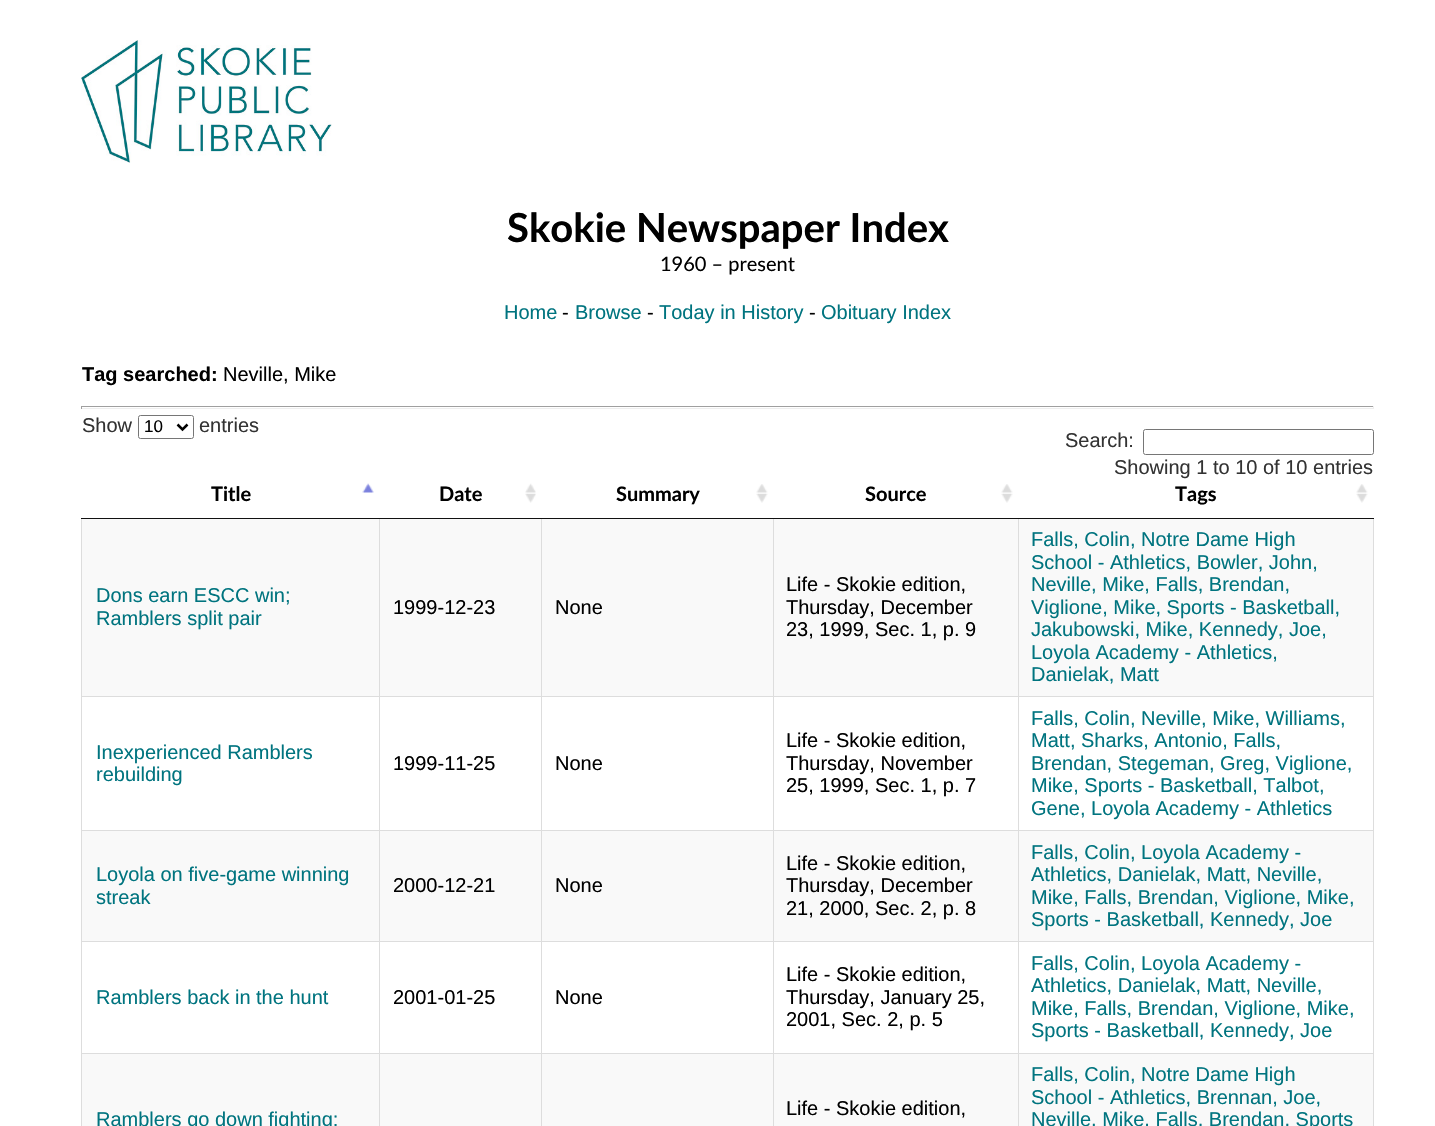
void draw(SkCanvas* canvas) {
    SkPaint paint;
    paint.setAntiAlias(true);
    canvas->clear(0xFFFFFFFF);
    canvas->drawImageRect(SkImages::DeferredFromEncodedData(SkData::MakeFromFileName("img1.png")), SkRect::MakeXYWH(81, 40, 251, 123), SkSamplingOptions());
    SkFont font1(fontMgr->matchFamilyStyle("Lato", SkFontStyle::Bold()), 40);
    font1.setSubpixel(true);
    paint.setColor(0xFF000000);
    canvas->drawString("Skokie Newspaper Index", 507, 242, font1, paint);
    SkFont font2(fontMgr->matchFamilyStyle("Lato", SkFontStyle::Normal()), 20);
    font2.setSubpixel(true);
    canvas->drawString("1960 – present", 660, 271, font2, paint);
    SkFont font3(fontMgr->matchFamilyStyle("Liberation Sans", SkFontStyle::Normal()), 20);
    font3.setSubpixel(true);
    paint.setColor(0xFF00747F);
    canvas->drawString("Home", 504, 319, font3, paint);
    paint.setColor(0xFF000000);
    canvas->drawString("-", 562, 319, font3, paint);
    paint.setColor(0xFF00747F);
    canvas->drawString("Browse", 575, 319, font3, paint);
    paint.setColor(0xFF000000);
    canvas->drawString("-", 647, 319, font3, paint);
    paint.setColor(0xFF00747F);
    canvas->drawString("Today in History", 659, 319, font3, paint);
    paint.setColor(0xFF000000);
    canvas->drawString("-", 809, 319, font3, paint);
    paint.setColor(0xFF00747F);
    canvas->drawString("Obituary Index", 821, 319, font3, paint);
    SkFont font4(fontMgr->matchFamilyStyle("Liberation Sans", SkFontStyle::Bold()), 20);
    font4.setSubpixel(true);
    paint.setColor(0xFF000000);
    canvas->drawString("Tag searched:", 82, 381, font4, paint);
    canvas->drawString("Neville, Mike", 223, 381, font3, paint);
    paint.setColor(0xFF9F9F9F);
    canvas->drawRect(SkRect::MakeXYWH(81, 406, 1293, 1), paint);
    paint.setColor(0xFFEEEEEE);
    canvas->drawRect(SkRect::MakeXYWH(1373, 406, 1, 3), paint);
    canvas->drawRect(SkRect::MakeXYWH(81, 408, 1293, 1), paint);
    paint.setColor(0xFF9F9F9F);
    canvas->drawRect(SkRect::MakeXYWH(81, 406, 1, 3), paint);
    paint.setColor(0xFF333333);
    canvas->drawString("Show", 82, 432, font3, paint);
    paint.setStyle(SkPaint::kStroke_Style);
    paint.setStrokeWidth(1);
    paint.setColor(0xFF767676);
    canvas->drawRoundRect(SkRect::MakeXYWH(138.5f, 415.5f, 55, 23), 2, 2, paint);
    paint.setStrokeWidth(2.5f);
    paint.setColor(0xFF000000);
    canvas->drawPath(SkPathBuilder().moveTo(177.5f, 424.5f).lineTo(182.5f, 429.5f).lineTo(187.5f, 424.5f).detach(), paint);
    SkFont font5(fontMgr->matchFamilyStyle("Liberation Sans", SkFontStyle::Normal()), 17);
    font5.setSubpixel(true);
    paint.setStyle(SkPaint::kFill_Style);
    canvas->drawString("10", 144, 432, font5, paint);
    paint.setColor(0xFF333333);
    canvas->drawString("entries", 199, 432, font3, paint);
    canvas->drawString("Search:", 1065, 447, font3, paint);
    paint.setStyle(SkPaint::kStroke_Style);
    paint.setStrokeWidth(1);
    paint.setColor(0xFF767676);
    canvas->drawRoundRect(SkRect::MakeXYWH(1143.5f, 429.5f, 230, 25), 2, 2, paint);
    paint.setStyle(SkPaint::kFill_Style);
    paint.setColor(0xFF333333);
    canvas->drawString("Showing 1 to 10 of 10 entries", 1114, 474, font3, paint);
    canvas->drawImageRect(SkImages::DeferredFromEncodedData(SkData::MakeFromFileName("img2.png")), SkRect::MakeXYWH(362, 483, 12, 10), SkSamplingOptions());
    paint.setColor(0xFF111111);
    canvas->drawRect(SkRect::MakeXYWH(81, 518, 1293, 1), paint);
    SkFont font6(fontMgr->matchFamilyStyle("Lato", SkFontStyle::Bold()), 20);
    font6.setSubpixel(true);
    paint.setColor(0xFF000000);
    canvas->drawString("Title", 211, 501, font6, paint);
    canvas->drawImageRect(SkImages::DeferredFromEncodedData(SkData::MakeFromFileName("img3.png")), SkRect::MakeXYWH(525, 483, 11, 20), SkSamplingOptions());
    canvas->drawString("Date", 439, 501, font6, paint);
    canvas->drawImageRect(SkImages::DeferredFromEncodedData(SkData::MakeFromFileName("img4.png")), SkRect::MakeXYWH(756, 484, 12, 19), SkSamplingOptions());
    canvas->drawString("Summary", 616, 501, font6, paint);
    canvas->drawImageRect(SkImages::DeferredFromEncodedData(SkData::MakeFromFileName("img5.png")), SkRect::MakeXYWH(1001, 484, 12, 19), SkSamplingOptions());
    canvas->drawString("Source", 865, 501, font6, paint);
    canvas->drawImageRect(SkImages::DeferredFromEncodedData(SkData::MakeFromFileName("img6.png")), SkRect::MakeXYWH(1356, 484, 12, 19), SkSamplingOptions());
    canvas->drawString("Tags", 1175, 501, font6, paint);
    paint.setColor(0xFFF9F9F9);
    canvas->drawRect(SkRect::MakeXYWH(82, 519, 1291, 177), paint);
    paint.setColor(0xFFDDDDDD);
    canvas->drawRect(SkRect::MakeXYWH(379, 519, 1, 177), paint);
    canvas->drawRect(SkRect::MakeXYWH(81, 519, 1, 177), paint);
    paint.setColor(0xFF00747F);
    canvas->drawString("Dons earn ESCC win;", 96, 602, font3, paint);
    canvas->drawString("Ramblers split pair", 96, 625, font3, paint);
    paint.setColor(0xFFDDDDDD);
    canvas->drawRect(SkRect::MakeXYWH(541, 519, 1, 177), paint);
    paint.setColor(0xFF000000);
    canvas->drawString("1999-12-23", 393, 614, font3, paint);
    paint.setColor(0xFFDDDDDD);
    canvas->drawRect(SkRect::MakeXYWH(773, 519, 1, 177), paint);
    paint.setColor(0xFF000000);
    canvas->drawString("None", 555, 614, font3, paint);
    paint.setColor(0xFFDDDDDD);
    canvas->drawRect(SkRect::MakeXYWH(1018, 519, 1, 177), paint);
    paint.setColor(0xFF000000);
    canvas->drawString("Life - Skokie edition,", 786, 591, font3, paint);
    canvas->drawString("Thursday, December", 786, 614, font3, paint);
    canvas->drawString("23, 1999, Sec. 1, p. 9", 786, 636, font3, paint);
    paint.setColor(0xFFDDDDDD);
    canvas->drawRect(SkRect::MakeXYWH(1373, 519, 1, 177), paint);
    paint.setColor(0xFF00747F);
    canvas->drawString("Falls, Colin, Notre Dame High", 1031, 546, font3, paint);
    canvas->drawString("School - Athletics, Bowler, John,", 1031, 569, font3, paint);
    canvas->drawString("Neville, Mike, Falls, Brendan,", 1031, 591, font3, paint);
    canvas->drawString("Viglione, Mike, Sports - Basketball,", 1031, 614, font3, paint);
    canvas->drawString("Jakubowski, Mike, Kennedy, Joe,", 1031, 636, font3, paint);
    canvas->drawString("Loyola Academy - Athletics,", 1031, 659, font3, paint);
    canvas->drawString("Danielak, Matt", 1031, 681, font3, paint);
    paint.setColor(0xFFDDDDDD);
    canvas->drawRect(SkRect::MakeXYWH(81, 696, 1293, 1), paint);
    canvas->drawRect(SkRect::MakeXYWH(379, 696, 1, 134), paint);
    canvas->drawRect(SkRect::MakeXYWH(81, 696, 1, 134), paint);
    paint.setColor(0xFF00747F);
    canvas->drawString("Inexperienced Ramblers", 96, 759, font3, paint);
    canvas->drawString("rebuilding", 96, 781, font3, paint);
    paint.setColor(0xFFDDDDDD);
    canvas->drawRect(SkRect::MakeXYWH(541, 696, 1, 134), paint);
    paint.setColor(0xFF000000);
    canvas->drawString("1999-11-25", 393, 770, font3, paint);
    paint.setColor(0xFFDDDDDD);
    canvas->drawRect(SkRect::MakeXYWH(773, 696, 1, 134), paint);
    paint.setColor(0xFF000000);
    canvas->drawString("None", 555, 770, font3, paint);
    paint.setColor(0xFFDDDDDD);
    canvas->drawRect(SkRect::MakeXYWH(1018, 696, 1, 134), paint);
    paint.setColor(0xFF000000);
    canvas->drawString("Life - Skokie edition,", 786, 747, font3, paint);
    canvas->drawString("Thursday, November", 786, 770, font3, paint);
    canvas->drawString("25, 1999, Sec. 1, p. 7", 786, 792, font3, paint);
    paint.setColor(0xFFDDDDDD);
    canvas->drawRect(SkRect::MakeXYWH(1373, 696, 1, 134), paint);
    paint.setColor(0xFF00747F);
    canvas->drawString("Falls, Colin, Neville, Mike, Williams,", 1031, 725, font3, paint);
    canvas->drawString("Matt, Sharks, Antonio, Falls,", 1031, 747, font3, paint);
    canvas->drawString("Brendan, Stegeman, Greg, Viglione,", 1031, 770, font3, paint);
    canvas->drawString("Mike, Sports - Basketball, Talbot,", 1031, 792, font3, paint);
    canvas->drawString("Gene, Loyola Academy - Athletics", 1031, 815, font3, paint);
    paint.setColor(0xFFF9F9F9);
    canvas->drawRect(SkRect::MakeXYWH(82, 831, 1291, 110), paint);
    paint.setColor(0xFFDDDDDD);
    canvas->drawRect(SkRect::MakeXYWH(81, 830, 1293, 1), paint);
    canvas->drawRect(SkRect::MakeXYWH(379, 830, 1, 111), paint);
    canvas->drawRect(SkRect::MakeXYWH(81, 830, 1, 111), paint);
    paint.setColor(0xFF00747F);
    canvas->drawString("Loyola on five-game winning", 96, 881, font3, paint);
    canvas->drawString("streak", 96, 904, font3, paint);
    paint.setColor(0xFFDDDDDD);
    canvas->drawRect(SkRect::MakeXYWH(541, 830, 1, 111), paint);
    paint.setColor(0xFF000000);
    canvas->drawString("2000-12-21", 393, 892, font3, paint);
    paint.setColor(0xFFDDDDDD);
    canvas->drawRect(SkRect::MakeXYWH(773, 830, 1, 111), paint);
    paint.setColor(0xFF000000);
    canvas->drawString("None", 555, 892, font3, paint);
    paint.setColor(0xFFDDDDDD);
    canvas->drawRect(SkRect::MakeXYWH(1018, 830, 1, 111), paint);
    paint.setColor(0xFF000000);
    canvas->drawString("Life - Skokie edition,", 786, 870, font3, paint);
    canvas->drawString("Thursday, December", 786, 892, font3, paint);
    canvas->drawString("21, 2000, Sec. 2, p. 8", 786, 915, font3, paint);
    paint.setColor(0xFFDDDDDD);
    canvas->drawRect(SkRect::MakeXYWH(1373, 830, 1, 111), paint);
    paint.setColor(0xFF00747F);
    canvas->drawString("Falls, Colin, Loyola Academy -", 1031, 859, font3, paint);
    canvas->drawString("Athletics, Danielak, Matt, Neville,", 1031, 881, font3, paint);
    canvas->drawString("Mike, Falls, Brendan, Viglione, Mike,", 1031, 904, font3, paint);
    canvas->drawString("Sports - Basketball, Kennedy, Joe", 1031, 926, font3, paint);
    paint.setColor(0xFFDDDDDD);
    canvas->drawRect(SkRect::MakeXYWH(81, 941, 1293, 1), paint);
    canvas->drawRect(SkRect::MakeXYWH(379, 941, 1, 112), paint);
    canvas->drawRect(SkRect::MakeXYWH(81, 941, 1, 112), paint);
    paint.setColor(0xFF00747F);
    canvas->drawString("Ramblers back in the hunt", 96, 1004, font3, paint);
    paint.setColor(0xFFDDDDDD);
    canvas->drawRect(SkRect::MakeXYWH(541, 941, 1, 112), paint);
    paint.setColor(0xFF000000);
    canvas->drawString("2001-01-25", 393, 1004, font3, paint);
    paint.setColor(0xFFDDDDDD);
    canvas->drawRect(SkRect::MakeXYWH(773, 941, 1, 112), paint);
    paint.setColor(0xFF000000);
    canvas->drawString("None", 555, 1004, font3, paint);
    paint.setColor(0xFFDDDDDD);
    canvas->drawRect(SkRect::MakeXYWH(1018, 941, 1, 112), paint);
    paint.setColor(0xFF000000);
    canvas->drawString("Life - Skokie edition,", 786, 981, font3, paint);
    canvas->drawString("Thursday, January 25,", 786, 1004, font3, paint);
    canvas->drawString("2001, Sec. 2, p. 5", 786, 1026, font3, paint);
    paint.setColor(0xFFDDDDDD);
    canvas->drawRect(SkRect::MakeXYWH(1373, 941, 1, 112), paint);
    paint.setColor(0xFF00747F);
    canvas->drawString("Falls, Colin, Loyola Academy -", 1031, 970, font3, paint);
    canvas->drawString("Athletics, Danielak, Matt, Neville,", 1031, 992, font3, paint);
    canvas->drawString("Mike, Falls, Brendan, Viglione, Mike,", 1031, 1015, font3, paint);
    canvas->drawString("Sports - Basketball, Kennedy, Joe", 1031, 1037, font3, paint);
    paint.setColor(0xFFF9F9F9);
    canvas->drawRect(SkRect::MakeXYWH(82, 1054, 1291, 72), paint);
    paint.setColor(0xFFDDDDDD);
    canvas->drawRect(SkRect::MakeXYWH(81, 1053, 1293, 1), paint);
    canvas->drawRect(SkRect::MakeXYWH(379, 1053, 1, 73), paint);
    canvas->drawRect(SkRect::MakeXYWH(81, 1053, 1, 73), paint);
    paint.setColor(0xFF00747F);
    canvas->drawString("Ramblers go down fighting;", 96, 1126, font3, paint);
    paint.setColor(0xFFDDDDDD);
    canvas->drawRect(SkRect::MakeXYWH(541, 1053, 1, 73), paint);
    canvas->drawRect(SkRect::MakeXYWH(773, 1053, 1, 73), paint);
    canvas->drawRect(SkRect::MakeXYWH(1018, 1053, 1, 73), paint);
    paint.setColor(0xFF000000);
    canvas->drawString("Life - Skokie edition,", 786, 1115, font3, paint);
    paint.setColor(0xFFDDDDDD);
    canvas->drawRect(SkRect::MakeXYWH(1373, 1053, 1, 73), paint);
    paint.setColor(0xFF00747F);
    canvas->drawString("Falls, Colin, Notre Dame High", 1031, 1081, font3, paint);
    canvas->drawString("School - Athletics, Brennan, Joe,", 1031, 1104, font3, paint);
    canvas->drawString("Neville, Mike, Falls, Brendan, Sports", 1031, 1126, font3, paint);
}
